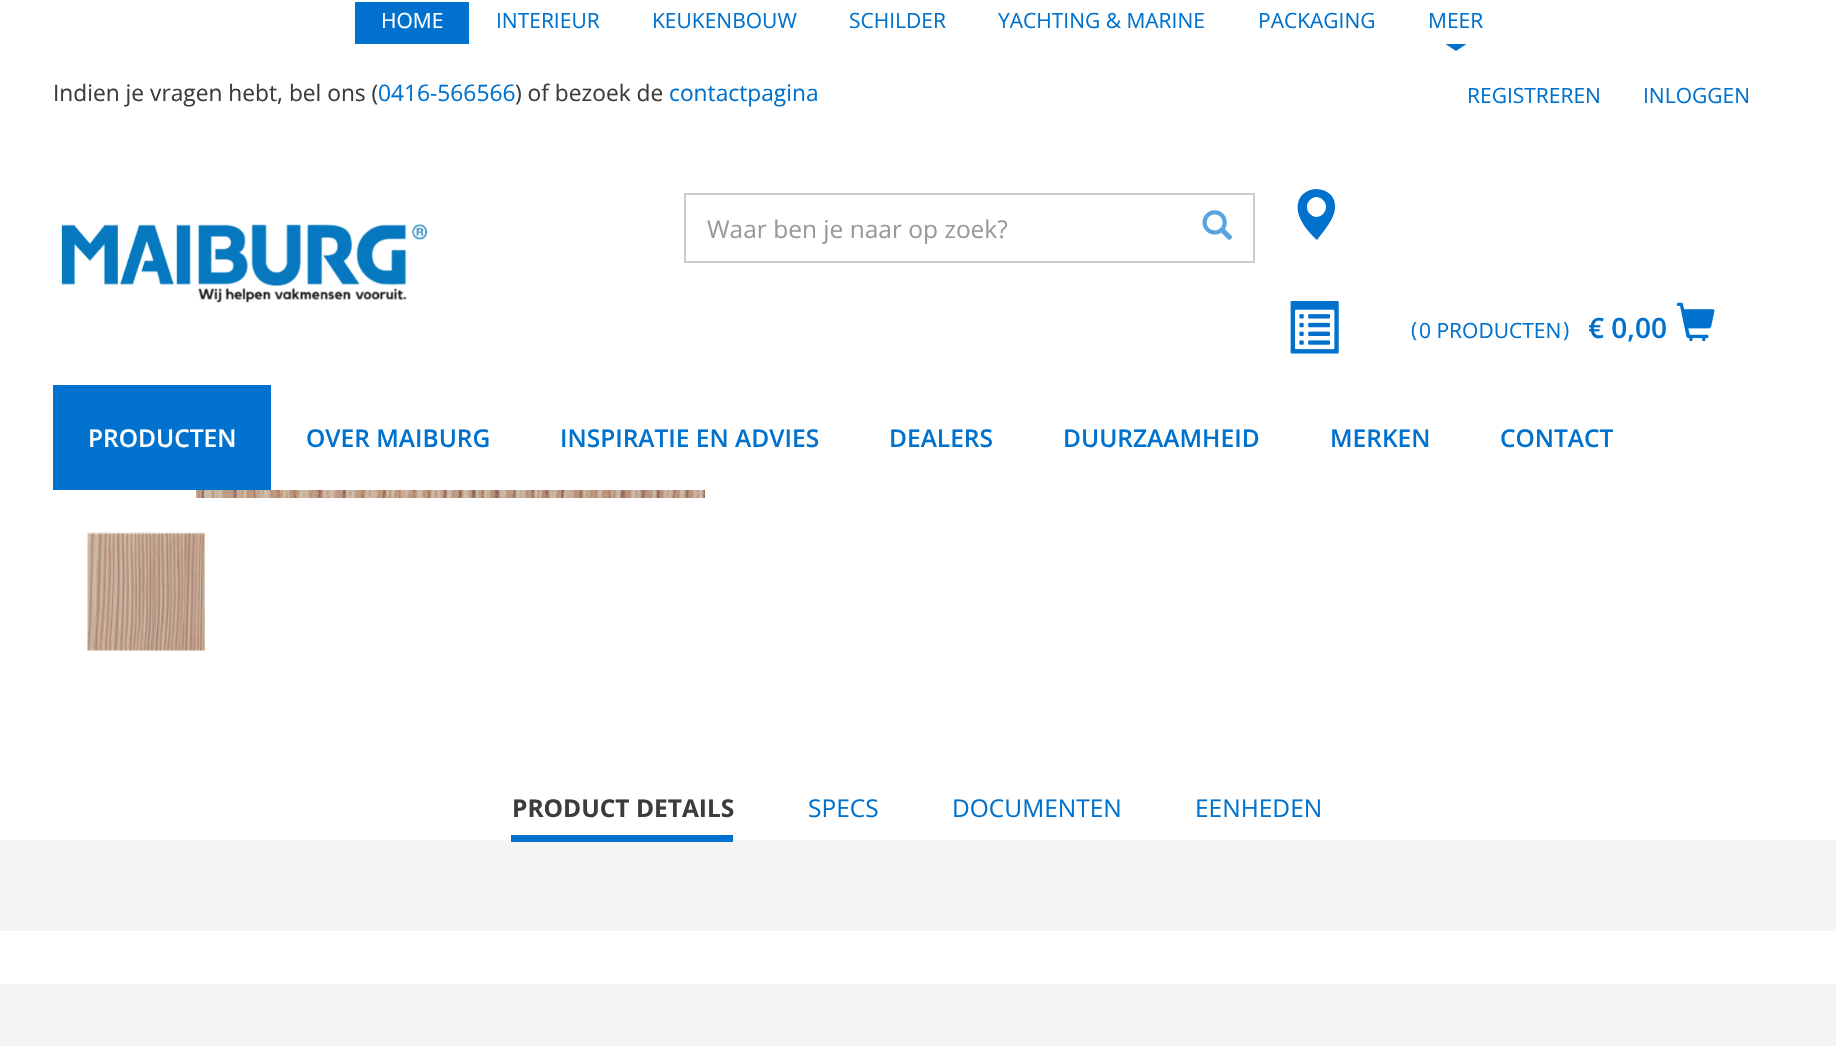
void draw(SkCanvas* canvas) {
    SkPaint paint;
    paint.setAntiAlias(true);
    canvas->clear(0xFFFFFFFF);
    paint.setColor(0xFF0072CE);
    canvas->drawRect(SkRect::MakeXYWH(355, 2, 114, 42), paint);
    SkFont font1(fontMgr->matchFamilyStyle("Open Sans", SkFontStyle::Normal()), 21);
    font1.setSubpixel(true);
    paint.setColor(0xFFFFFFFF);
    canvas->drawString("HOME", 381, 28, font1, paint);
    paint.setColor(0xFF0072CE);
    canvas->drawString("INTERIEUR", 496, 28, font1, paint);
    canvas->drawString("KEUKENBOUW", 652, 28, font1, paint);
    canvas->drawString("SCHILDER", 849, 28, font1, paint);
    canvas->drawString("YACHTING & MARINE", 998, 28, font1, paint);
    canvas->drawString("PACKAGING", 1258, 28, font1, paint);
    canvas->drawString("MEER", 1428, 28, font1, paint);
    canvas->drawPath(SkPathBuilder().moveTo(1445.5f, 44).lineTo(1466.5f, 44).lineTo(1456, 51).close().detach(), paint);
    SkFont font2(fontMgr->matchFamilyStyle("Open Sans", SkFontStyle::Normal()), 22.75f);
    font2.setSubpixel(true);
    paint.setColor(0xFF3C3C3C);
    canvas->drawString("Indien je vragen hebt, bel ons (", 53, 101, font2, paint);
    paint.setColor(0xFF0072CE);
    canvas->drawString("0416-566566", 378, 101, font2, paint);
    paint.setColor(0xFF3C3C3C);
    canvas->drawString(") of bezoek de", 515, 101, font2, paint);
    paint.setColor(0xFF0072CE);
    canvas->drawString("contactpagina", 669, 101, font2, paint);
    canvas->drawString("REGISTREREN", 1467, 103, font1, paint);
    canvas->drawString("INLOGGEN", 1643, 103, font1, paint);
    canvas->drawImageRect(SkImages::DeferredFromEncodedData(SkData::MakeFromFileName("img1.png")), SkRect::MakeXYWH(61, 224, 367, 79), SkSamplingOptions());
    paint.setStyle(SkPaint::kStroke_Style);
    paint.setStrokeWidth(2);
    paint.setColor(0xFFCCCCCC);
    canvas->drawRect(SkRect::MakeXYWH(685, 194, 569, 68), paint);
    SkFont font3(fontMgr->matchFamilyStyle("Open Sans", SkFontStyle::Normal()), 24.5f);
    font3.setSubpixel(true);
    paint.setStyle(SkPaint::kFill_Style);
    paint.setColor(0xFF999999);
    canvas->drawString("Waar ben je naar op zoek?", 707, 238, font3, paint);
    canvas->drawImageRect(SkImages::DeferredFromEncodedData(SkData::MakeFromFileName("img2.png")), SkRect::MakeXYWH(1202, 210, 31, 30), SkSamplingOptions());
    paint.setColor(0xFF0072CE);
    canvas->drawPath(SkPathBuilder().moveTo(1316, 189).cubicTo(1322, 189, 1327, 191, 1331, 195).cubicTo(1343, 210, 1326, 228, 1317, 240).cubicTo(1305, 229, 1290, 210, 1302, 195).cubicTo(1306, 191, 1311, 189, 1316, 189).close().moveTo(1323, 200).cubicTo(1314, 191, 1301, 205, 1310, 214).cubicTo(1319, 223, 1332, 209, 1323, 200).close().detach(), paint);
    canvas->drawImageRect(SkImages::DeferredFromEncodedData(SkData::MakeFromFileName("img3.png")), SkRect::MakeXYWH(1290, 301, 49, 53), SkSamplingOptions());
    canvas->drawString("(", 1411, 337, font1, paint);
    canvas->drawString("0 PRODUCTEN", 1419, 338, font1, paint);
    canvas->drawString(")", 1563, 337, font1, paint);
    canvas->save();
    canvas->clipRect(SkRect::MakeXYWH(1589, 280, 79, 96));
    SkFont font4(fontMgr->matchFamilyStyle("Open Sans", SkFontStyle(600, SkFontStyle::kNormal_Width, SkFontStyle::kUpright_Slant)), 28);
    font4.setSubpixel(true);
    canvas->drawString("€ 0,00", 1588, 338, font4, paint);
    canvas->restore();
    canvas->drawImageRect(SkImages::DeferredFromEncodedData(SkData::MakeFromFileName("img4.png")), SkRect::MakeXYWH(1676, 302, 39, 40), SkSamplingOptions());
    canvas->drawRect(SkRect::MakeXYWH(53, 385, 218, 105), paint);
    SkFont font5(fontMgr->matchFamilyStyle("Open Sans", SkFontStyle(600, SkFontStyle::kNormal_Width, SkFontStyle::kUpright_Slant)), 24.5f);
    font5.setSubpixel(true);
    paint.setColor(0xFFFFFFFF);
    canvas->drawString("PRODUCTEN", 88, 447, font5, paint);
    paint.setColor(0xFF0072CE);
    canvas->drawString("OVER MAIBURG", 306, 447, font5, paint);
    canvas->drawString("INSPIRATIE EN ADVIES", 560, 447, font5, paint);
    canvas->drawString("DEALERS", 889, 447, font5, paint);
    canvas->drawString("DUURZAAMHEID", 1063, 447, font5, paint);
    canvas->drawString("MERKEN", 1330, 447, font5, paint);
    canvas->drawString("CONTACT", 1500, 447, font5, paint);
    canvas->drawImageRect(SkImages::DeferredFromEncodedData(SkData::MakeFromFileName("img5.png")), SkRect::MakeXYWH(196, 490, 509, 8), SkSamplingOptions());
    canvas->drawImageRect(SkImages::DeferredFromEncodedData(SkData::MakeFromFileName("img6.png")), SkRect::MakeXYWH(87, 532, 118, 119), SkSamplingOptions());
    paint.setColor(0xFFF4F4F4);
    canvas->drawRect(SkRect::MakeXYWH(0, 840, 1836, 91), paint);
    paint.setColor(0xFF0072CE);
    canvas->drawRect(SkRect::MakeXYWH(511, 835, 222, 7), paint);
    SkFont font6(fontMgr->matchFamilyStyle("Open Sans", SkFontStyle::Bold()), 24.5f);
    font6.setSubpixel(true);
    paint.setColor(0xFF3C3C3C);
    canvas->drawString("PRODUCT DETAILS", 512, 817, font6, paint);
    paint.setColor(0xFF0072CE);
    canvas->drawString("SPECS", 808, 817, font3, paint);
    canvas->drawString("DOCUMENTEN", 952, 817, font3, paint);
    canvas->drawString("EENHEDEN", 1195, 817, font3, paint);
    paint.setColor(0xFFF4F4F4);
    canvas->drawRect(SkRect::MakeXYWH(0, 984, 1836, 62), paint);
}
